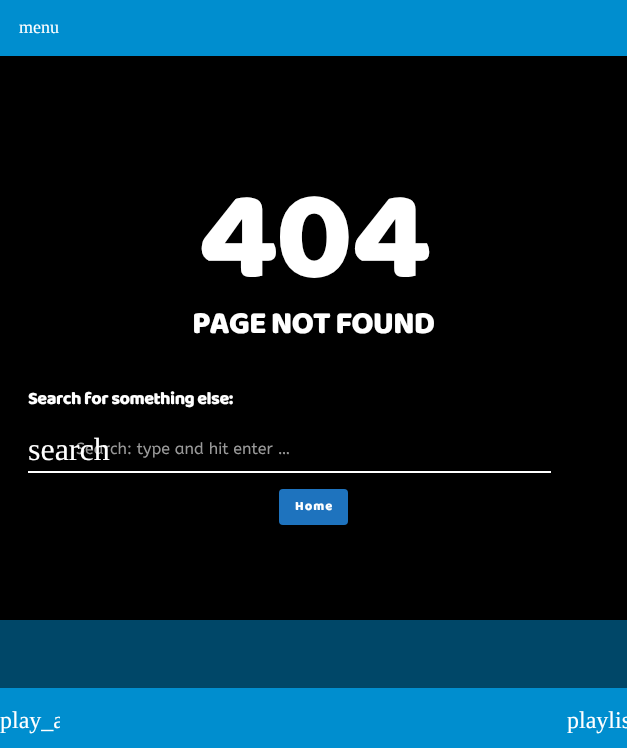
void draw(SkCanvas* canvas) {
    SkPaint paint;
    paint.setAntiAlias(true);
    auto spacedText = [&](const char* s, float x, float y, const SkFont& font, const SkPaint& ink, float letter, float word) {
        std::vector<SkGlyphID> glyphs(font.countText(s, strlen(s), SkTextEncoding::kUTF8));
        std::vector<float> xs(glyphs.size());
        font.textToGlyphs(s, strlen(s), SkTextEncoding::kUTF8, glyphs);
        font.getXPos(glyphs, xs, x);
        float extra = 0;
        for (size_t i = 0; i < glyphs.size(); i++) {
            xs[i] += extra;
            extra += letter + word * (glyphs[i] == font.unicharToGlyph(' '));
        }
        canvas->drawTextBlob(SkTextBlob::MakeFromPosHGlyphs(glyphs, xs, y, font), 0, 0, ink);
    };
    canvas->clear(0xFF000000);
    paint.setColor(0xFF008ECF);
    canvas->drawRect(SkRect::MakeXYWH(0, 0, 627, 56), paint);
    SkFont font1(fontMgr->matchFamilyStyle("Liberation Serif", SkFontStyle::Normal()), 18);
    font1.setSubpixel(true);
    paint.setColor(0xFFFFFFFF);
    canvas->drawString("menu", 19, 33, font1, paint);
    SkFont font2(fontMgr->matchFamilyStyle("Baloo", SkFontStyle::Normal()), 128);
    font2.setSubpixel(true);
    spacedText("404", 199, 276, font2, paint, -1, 0);
    SkFont font3(fontMgr->matchFamilyStyle("Baloo", SkFontStyle::Normal()), 32);
    font3.setSubpixel(true);
    spacedText("PAGE NOT FOUND", 192, 333, font3, paint, -1, 0);
    SkFont font4(fontMgr->matchFamilyStyle("Baloo", SkFontStyle::Normal()), 18);
    font4.setSubpixel(true);
    spacedText("Search for something else:", 28, 404, font4, paint, -0.55f, 0);
    SkFont font5(fontMgr->matchFamilyStyle("ABeeZee", SkFontStyle::Normal()), 16);
    font5.setSubpixel(true);
    paint.setColor(0xFF999999);
    canvas->drawString("Search: type and hit enter …", 76, 454, font5, paint);
    SkFont font6(fontMgr->matchFamilyStyle("Liberation Serif", SkFontStyle::Normal()), 32);
    font6.setSubpixel(true);
    paint.setColor(0xFFFFFFFF);
    canvas->drawString("search", 28, 460, font6, paint);
    canvas->drawRect(SkRect::MakeXYWH(28, 471, 523, 2), paint);
    paint.setColor(0xFF1E73BE);
    canvas->drawRoundRect(SkRect::MakeXYWH(279, 489, 69, 36), 4, 4, paint);
    SkFont font7(fontMgr->matchFamilyStyle("Baloo", SkFontStyle::Normal()), 13);
    font7.setSubpixel(true);
    paint.setColor(0xFFFFFFFF);
    spacedText("Home", 295, 510, font7, paint, 1, 0);
    paint.setColor(0xFF004768);
    canvas->drawRect(SkRect::MakeXYWH(0, 620, 627, 68), paint);
    paint.setColor(0xFF008ECF);
    canvas->drawRect(SkRect::MakeXYWH(0, 688, 627, 60), paint);
    canvas->save();
    canvas->clipRect(SkRect::MakeXYWH(0, 688, 60, 60));
    SkFont font8(fontMgr->matchFamilyStyle("Liberation Serif", SkFontStyle::Normal()), 24);
    font8.setSubpixel(true);
    paint.setColor(0xFFFFFFFF);
    canvas->drawString("play_a", 0, 728, font8, paint);
    canvas->restore();
    canvas->drawString("playlis", 567, 728, font8, paint);
}
